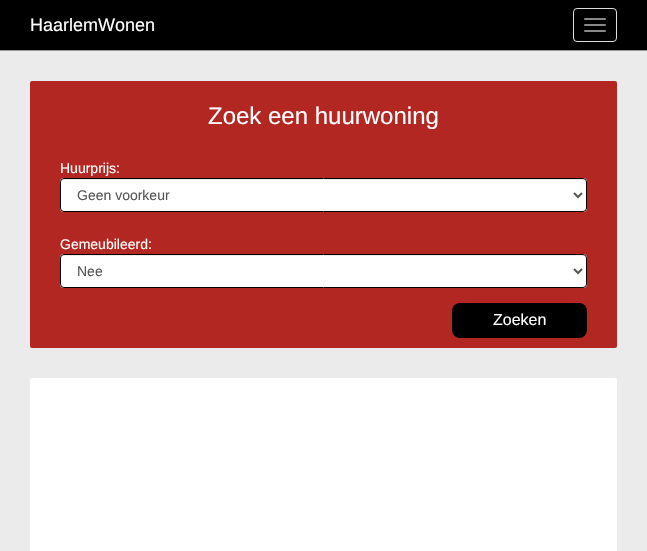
void draw(SkCanvas* canvas) {
    SkPaint paint;
    paint.setAntiAlias(true);
    canvas->clear(0xFF000000);
    SkFont font1(fontMgr->matchFamilyStyle("Liberation Sans", SkFontStyle::Normal()), 18);
    font1.setSubpixel(true);
    paint.setColor(0xFFFFFFFF);
    canvas->drawString("HaarlemWonen", 30, 31, font1, paint);
    paint.setStyle(SkPaint::kStroke_Style);
    paint.setStrokeWidth(1);
    paint.setColor(0xFFDDDDDD);
    canvas->drawRoundRect(SkRect::MakeXYWH(573.5f, 8.5f, 43, 33), 3.5f, 3.5f, paint);
    paint.setStyle(SkPaint::kFill_Style);
    paint.setColor(0xFF888888);
    canvas->drawRoundRect(SkRect::MakeXYWH(584, 18, 22, 2), 1, 1, paint);
    canvas->drawRoundRect(SkRect::MakeXYWH(584, 24, 22, 2), 1, 1, paint);
    canvas->drawRoundRect(SkRect::MakeXYWH(584, 30, 22, 2), 1, 1, paint);
    paint.setColor(0xFF959595);
    canvas->drawRect(SkRect::MakeXYWH(0, 50, 647, 1), paint);
    paint.setColor(0xFFEBEBEB);
    canvas->drawRect(SkRect::MakeXYWH(0, 51, 647, 500), paint);
    paint.setColor(0xFFB32722);
    canvas->drawRoundRect(SkRect::MakeXYWH(30, 81, 587, 267), 2, 2, paint);
    SkFont font2(fontMgr->matchFamilyStyle("Liberation Sans", SkFontStyle::Normal()), 24);
    font2.setSubpixel(true);
    paint.setColor(0xFFFFFFFF);
    canvas->drawString("Zoek een huurwoning", 208, 124, font2, paint);
    SkFont font3(fontMgr->matchFamilyStyle("Liberation Sans", SkFontStyle::Normal()), 14);
    font3.setSubpixel(true);
    canvas->drawString("Huurprijs:", 60, 173, font3, paint);
    canvas->drawRoundRect(SkRect::MakeXYWH(60, 178, 527, 34), 4, 4, paint);
    paint.setColor(0xFFECECEC);
    canvas->drawPath(SkPathBuilder().moveTo(64, 180).lineTo(583, 180).cubicTo(585, 180, 586, 181, 586, 183).lineTo(585, 180).lineTo(583, 179).lineTo(64, 179).cubicTo(62, 179, 61, 181, 61, 183).cubicTo(61, 181, 62, 180, 64, 180).close().detach(), paint);
    paint.setStyle(SkPaint::kStroke_Style);
    paint.setColor(0xFF000000);
    canvas->drawRoundRect(SkRect::MakeXYWH(60.5f, 178.5f, 526, 33), 3.5f, 3.5f, paint);
    paint.setStrokeWidth(2);
    paint.setColor(0xFF555555);
    canvas->drawPath(SkPathBuilder().moveTo(574, 193).lineTo(578, 197).lineTo(582, 193).detach(), paint);
    paint.setStyle(SkPaint::kFill_Style);
    canvas->drawString("Geen voorkeur", 77, 200, font3, paint);
    paint.setColor(0xFFFFFFFF);
    canvas->drawString("Gemeubileerd:", 60, 249, font3, paint);
    canvas->drawRoundRect(SkRect::MakeXYWH(60, 254, 527, 34), 4, 4, paint);
    paint.setColor(0xFFECECEC);
    canvas->drawPath(SkPathBuilder().moveTo(64, 256).lineTo(583, 256).cubicTo(585, 256, 586, 257, 586, 259).lineTo(585, 256).lineTo(583, 255).lineTo(64, 255).cubicTo(62, 255, 61, 257, 61, 259).cubicTo(61, 257, 62, 256, 64, 256).close().detach(), paint);
    paint.setStyle(SkPaint::kStroke_Style);
    paint.setStrokeWidth(1);
    paint.setColor(0xFF000000);
    canvas->drawRoundRect(SkRect::MakeXYWH(60.5f, 254.5f, 526, 33), 3.5f, 3.5f, paint);
    paint.setStrokeWidth(2);
    paint.setColor(0xFF555555);
    canvas->drawPath(SkPathBuilder().moveTo(574, 269).lineTo(578, 273).lineTo(582, 269).detach(), paint);
    paint.setStyle(SkPaint::kFill_Style);
    canvas->drawString("Nee", 77, 276, font3, paint);
    paint.setColor(0xFF000000);
    canvas->drawRoundRect(SkRect::MakeXYWH(452, 303, 135, 35), 8, 8, paint);
    SkFont font4(fontMgr->matchFamilyStyle("Liberation Sans", SkFontStyle::Normal()), 16);
    font4.setSubpixel(true);
    paint.setColor(0xFFFFFFFF);
    canvas->drawString("Zoeken", 493, 325, font4, paint);
    canvas->drawRoundRect(SkRect::MakeXYWH(30, 378, 587, 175), 2, 2, paint);
}
